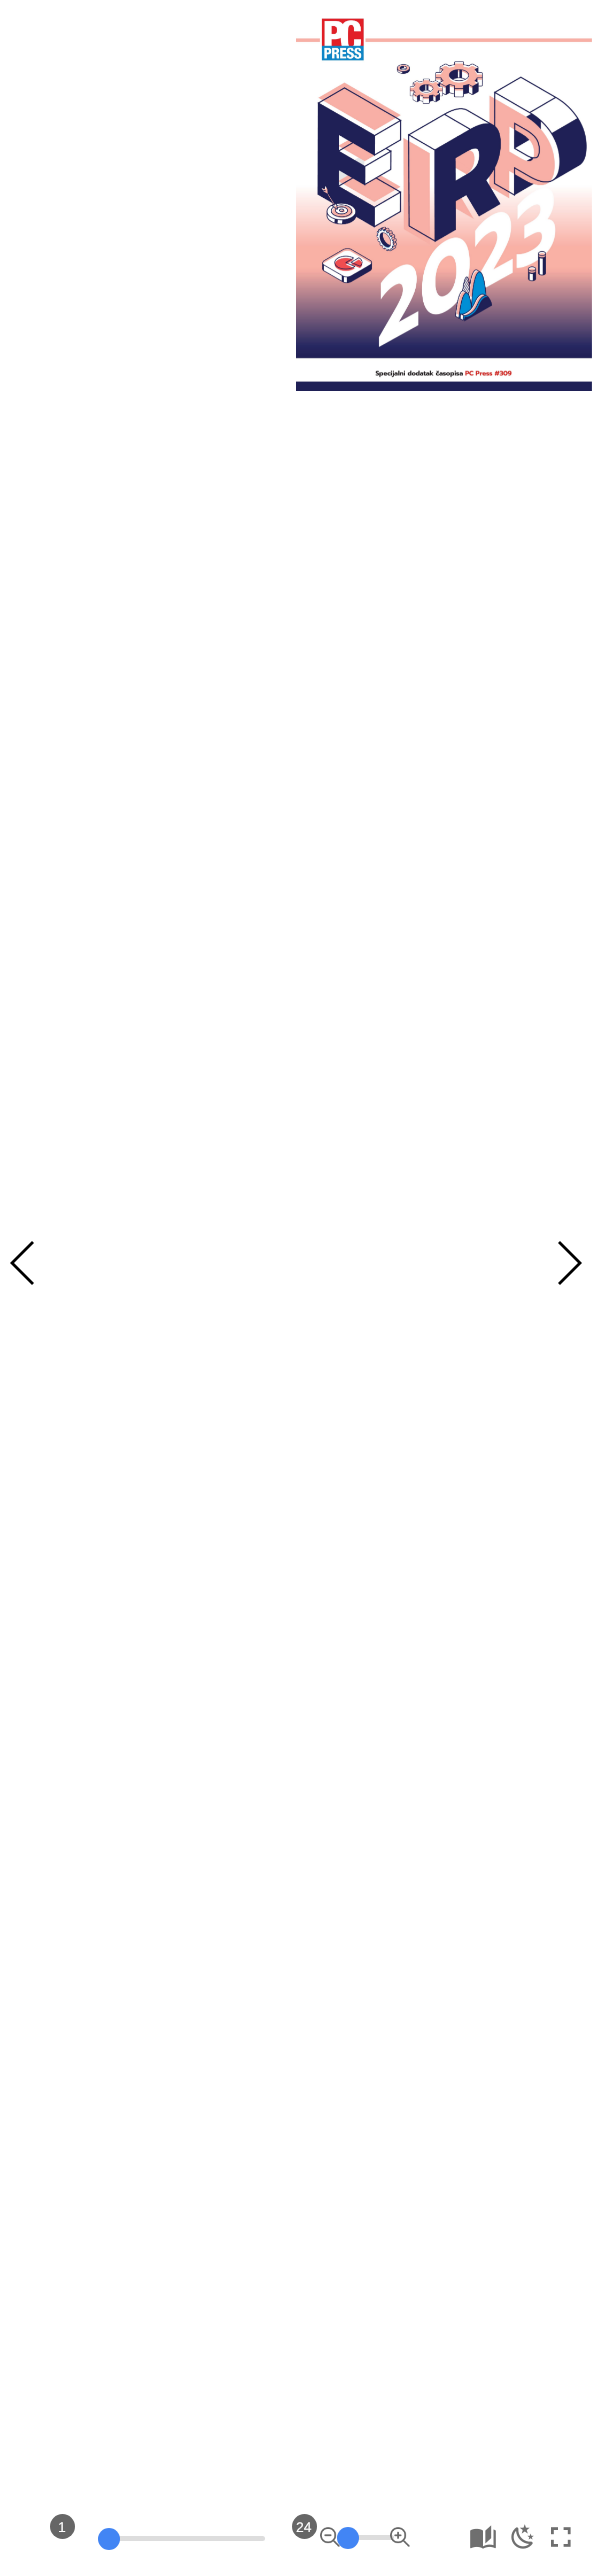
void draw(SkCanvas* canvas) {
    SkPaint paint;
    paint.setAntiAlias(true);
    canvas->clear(0xFFFFFFFF);
    canvas->drawImageRect(SkImages::DeferredFromEncodedData(SkData::MakeFromFileName("img1.png")), SkRect::MakeXYWH(296, 18, 296, 373), SkSamplingOptions());
    paint.setColor(0xFF000000);
    canvas->drawPath(SkPathBuilder().moveTo(10, 1263).lineTo(32, 1241).lineTo(34, 1243).lineTo(14, 1263).lineTo(34, 1283).lineTo(32, 1285).close().detach(), paint);
    canvas->drawPath(SkPathBuilder().moveTo(582, 1263).lineTo(560, 1285).lineTo(558, 1283).lineTo(578, 1263).lineTo(558, 1243).lineTo(560, 1241).close().detach(), paint);
    paint.setColor(0xFF666666);
    canvas->drawCircle(62.5f, 2526.5f, 12.5f, paint);
    SkFont font1(fontMgr->matchFamilyStyle("Liberation Sans", SkFontStyle::Normal()), 14);
    font1.setSubpixel(true);
    paint.setColor(0xFFFFFFFF);
    canvas->drawString("1", 58, 2532, font1, paint);
    paint.setColor(0xFF666666);
    canvas->drawCircle(304.5f, 2526.5f, 12.5f, paint);
    paint.setColor(0xFFFFFFFF);
    canvas->drawString("24", 296, 2532, font1, paint);
    paint.setColor(0xFFDDDDDD);
    canvas->drawRoundRect(SkRect::MakeXYWH(98, 2536, 167, 5), 2.5f, 2.5f, paint);
    paint.setColor(0xFF4285F4);
    canvas->drawCircle(109, 2539, 11, paint);
    paint.setColor(0xFFDDDDDD);
    canvas->drawRoundRect(SkRect::MakeXYWH(337, 2535, 57, 5), 2.5f, 2.5f, paint);
    paint.setColor(0xFF4285F4);
    canvas->drawCircle(348, 2538, 11, paint);
    canvas->drawImageRect(SkImages::DeferredFromEncodedData(SkData::MakeFromFileName("img2.png")), SkRect::MakeXYWH(320, 2527, 20, 20), SkSamplingOptions());
    canvas->drawImageRect(SkImages::DeferredFromEncodedData(SkData::MakeFromFileName("img3.png")), SkRect::MakeXYWH(390, 2527, 20, 20), SkSamplingOptions());
    canvas->drawImageRect(SkImages::DeferredFromEncodedData(SkData::MakeFromFileName("img4.png")), SkRect::MakeXYWH(470, 2525, 26, 24), SkSamplingOptions());
    canvas->drawImageRect(SkImages::DeferredFromEncodedData(SkData::MakeFromFileName("img5.png")), SkRect::MakeXYWH(511, 2524, 23, 25), SkSamplingOptions());
    canvas->drawImageRect(SkImages::DeferredFromEncodedData(SkData::MakeFromFileName("img6.png")), SkRect::MakeXYWH(551, 2527, 20, 20), SkSamplingOptions());
}
